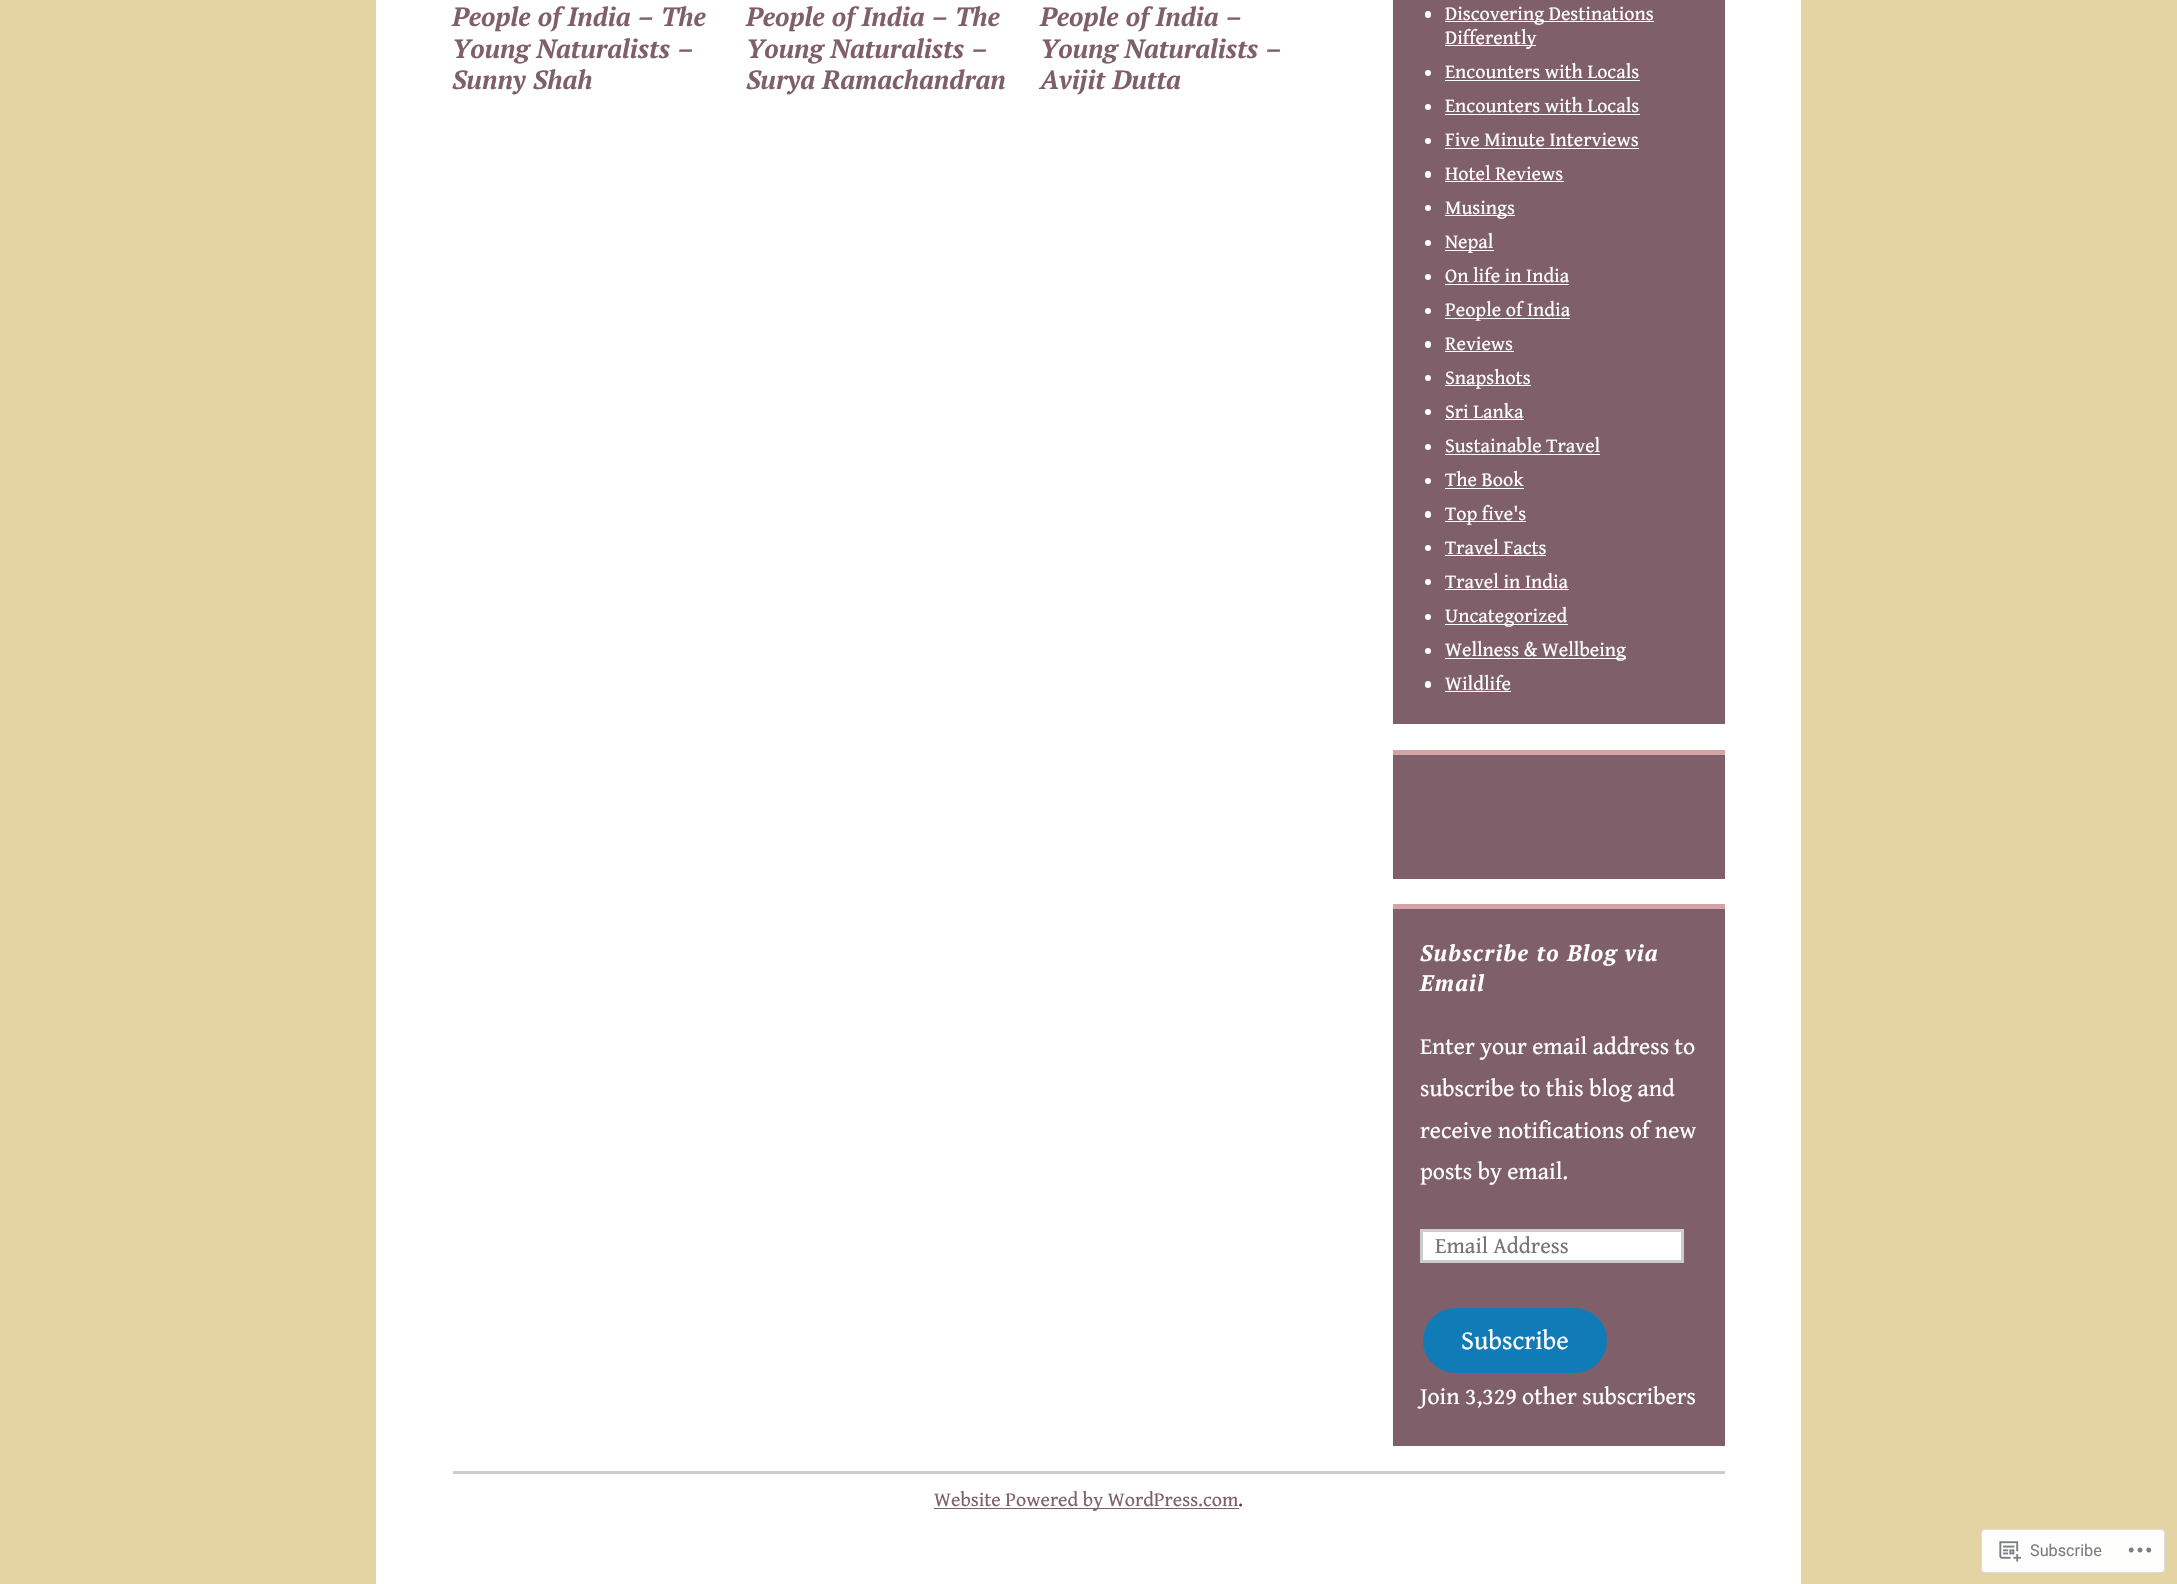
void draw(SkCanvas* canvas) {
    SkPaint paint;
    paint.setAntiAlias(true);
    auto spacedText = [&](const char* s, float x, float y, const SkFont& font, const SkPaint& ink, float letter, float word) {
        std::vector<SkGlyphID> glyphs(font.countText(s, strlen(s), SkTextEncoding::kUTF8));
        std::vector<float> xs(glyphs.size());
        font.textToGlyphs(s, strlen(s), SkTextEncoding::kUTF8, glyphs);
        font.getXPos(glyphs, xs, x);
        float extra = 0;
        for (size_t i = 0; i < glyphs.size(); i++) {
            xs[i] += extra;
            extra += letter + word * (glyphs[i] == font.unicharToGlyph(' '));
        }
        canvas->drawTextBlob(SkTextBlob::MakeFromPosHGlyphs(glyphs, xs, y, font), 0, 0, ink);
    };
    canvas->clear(0xFFE4D4A4);
    paint.setColor(0xFFFFFFFF);
    canvas->drawRect(SkRect::MakeXYWH(376, 0, 1425, 1584), paint);
    SkFont font1(fontMgr->matchFamilyStyle("PT Serif", SkFontStyle::BoldItalic()), 26.25f);
    font1.setSubpixel(true);
    paint.setColor(0xFF7E5F6A);
    canvas->drawString("People of India – The", 452, 26, font1, paint);
    canvas->drawString("Young Naturalists –", 452, 58, font1, paint);
    canvas->drawString("Sunny Shah", 452, 89, font1, paint);
    canvas->drawString("People of India – The", 746, 26, font1, paint);
    canvas->drawString("Young Naturalists –", 746, 58, font1, paint);
    canvas->drawString("Surya Ramachandran", 746, 89, font1, paint);
    canvas->drawString("People of India –", 1040, 26, font1, paint);
    canvas->drawString("Young Naturalists –", 1040, 58, font1, paint);
    canvas->drawString("Avijit Dutta", 1040, 89, font1, paint);
    canvas->drawRect(SkRect::MakeXYWH(1393, 0, 332, 724), paint);
    paint.setColor(0xFFFFFFFF);
    canvas->drawRoundRect(SkRect::MakeXYWH(1425, 11, 6, 7), 3, 3, paint);
    canvas->drawRect(SkRect::MakeXYWH(1445, 21, 209, 1), paint);
    SkFont font2(fontMgr->matchFamilyStyle("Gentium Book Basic", SkFontStyle::Normal()), 20);
    font2.setSubpixel(true);
    canvas->drawString("Discovering Destinations", 1445, 20, font2, paint);
    canvas->drawRect(SkRect::MakeXYWH(1445, 45, 91, 1), paint);
    canvas->drawString("Differently", 1445, 44, font2, paint);
    canvas->drawCircle(1428, 73, 3, paint);
    canvas->drawString("Encounters with Locals", 1445, 78, font2, paint);
    canvas->drawRect(SkRect::MakeXYWH(1445, 80, 195, 1), paint);
    canvas->drawCircle(1428, 107, 3, paint);
    canvas->drawString("Encounters with Locals", 1445, 112, font2, paint);
    canvas->drawRect(SkRect::MakeXYWH(1445, 114, 195, 1), paint);
    canvas->drawCircle(1428, 141, 3, paint);
    canvas->drawString("Five Minute Interviews", 1445, 146, font2, paint);
    canvas->drawRect(SkRect::MakeXYWH(1445, 148, 194, 1), paint);
    canvas->drawRoundRect(SkRect::MakeXYWH(1425, 171, 6, 7), 3, 3, paint);
    canvas->drawString("Hotel Reviews", 1445, 180, font2, paint);
    canvas->drawRect(SkRect::MakeXYWH(1445, 181, 119, 1), paint);
    canvas->drawCircle(1428, 208, 3, paint);
    canvas->drawRect(SkRect::MakeXYWH(1445, 215, 70, 1), paint);
    canvas->drawString("Musings", 1445, 214, font2, paint);
    canvas->drawCircle(1428, 243, 3, paint);
    canvas->drawRect(SkRect::MakeXYWH(1445, 250, 49, 1), paint);
    canvas->drawString("Nepal", 1445, 248, font2, paint);
    canvas->drawCircle(1428, 277, 3, paint);
    canvas->drawString("On life in India", 1445, 282, font2, paint);
    canvas->drawRect(SkRect::MakeXYWH(1445, 284, 124, 1), paint);
    canvas->drawCircle(1428, 311, 3, paint);
    canvas->drawRect(SkRect::MakeXYWH(1445, 318, 125, 1), paint);
    canvas->drawString("People of India", 1445, 316, font2, paint);
    canvas->drawRoundRect(SkRect::MakeXYWH(1425, 341, 6, 7), 3, 3, paint);
    canvas->drawString("Reviews", 1445, 350, font2, paint);
    canvas->drawRect(SkRect::MakeXYWH(1445, 351, 69, 1), paint);
    canvas->drawCircle(1428, 378, 3, paint);
    canvas->drawRect(SkRect::MakeXYWH(1445, 385, 86, 1), paint);
    canvas->drawString("Snapshots", 1445, 384, font2, paint);
    canvas->drawCircle(1428, 412, 3, paint);
    canvas->drawString("Sri Lanka", 1445, 418, font2, paint);
    canvas->drawRect(SkRect::MakeXYWH(1445, 419, 79, 1), paint);
    canvas->drawCircle(1428, 447, 3, paint);
    canvas->drawString("Sustainable Travel", 1445, 452, font2, paint);
    canvas->drawRect(SkRect::MakeXYWH(1445, 454, 155, 1), paint);
    canvas->drawCircle(1428, 481, 3, paint);
    canvas->drawString("The Book", 1445, 486, font2, paint);
    canvas->drawRect(SkRect::MakeXYWH(1445, 488, 79, 1), paint);
    canvas->drawRoundRect(SkRect::MakeXYWH(1425, 511, 6, 7), 3, 3, paint);
    canvas->drawRect(SkRect::MakeXYWH(1445, 521, 81, 1), paint);
    canvas->drawString("Top five's", 1445, 520, font2, paint);
    canvas->drawCircle(1428, 548, 3, paint);
    canvas->drawString("Travel Facts", 1445, 554, font2, paint);
    canvas->drawRect(SkRect::MakeXYWH(1445, 555, 101, 1), paint);
    canvas->drawCircle(1428, 582, 3, paint);
    canvas->drawString("Travel in India", 1445, 588, font2, paint);
    canvas->drawRect(SkRect::MakeXYWH(1445, 589, 124, 1), paint);
    canvas->drawCircle(1428, 617, 3, paint);
    canvas->drawRect(SkRect::MakeXYWH(1445, 624, 123, 1), paint);
    canvas->drawString("Uncategorized", 1445, 622, font2, paint);
    canvas->drawCircle(1428, 651, 3, paint);
    canvas->drawRect(SkRect::MakeXYWH(1445, 658, 181, 1), paint);
    canvas->drawString("Wellness & Wellbeing", 1445, 656, font2, paint);
    canvas->drawRoundRect(SkRect::MakeXYWH(1425, 681, 6, 7), 3, 3, paint);
    canvas->drawString("Wildlife", 1445, 690, font2, paint);
    canvas->drawRect(SkRect::MakeXYWH(1445, 691, 66, 1), paint);
    paint.setColor(0xFF7E5F6A);
    canvas->drawRect(SkRect::MakeXYWH(1393, 755, 332, 124), paint);
    paint.setColor(0xFFD3A3A5);
    canvas->drawRect(SkRect::MakeXYWH(1393, 750, 332, 5), paint);
    paint.setColor(0xFF7E5F6A);
    canvas->drawRect(SkRect::MakeXYWH(1393, 909, 332, 537), paint);
    paint.setColor(0xFFD3A3A5);
    canvas->drawRect(SkRect::MakeXYWH(1393, 904, 332, 5), paint);
    SkFont font3(fontMgr->matchFamilyStyle("PT Serif", SkFontStyle::BoldItalic()), 22.5f);
    font3.setSubpixel(true);
    paint.setColor(0xFFFFFFFF);
    spacedText("Subscribe to Blog via", 1420, 961, font3, paint, 1.25f, 0);
    spacedText("Email", 1420, 991, font3, paint, 1.25f, 0);
    SkFont font4(fontMgr->matchFamilyStyle("Gentium Book Basic", SkFontStyle::Normal()), 23.75f);
    font4.setSubpixel(true);
    canvas->drawString("Enter your email address to", 1420, 1054, font4, paint);
    canvas->drawString("subscribe to this blog and", 1420, 1096, font4, paint);
    canvas->drawString("receive notifications of new", 1420, 1138, font4, paint);
    canvas->drawString("posts by email.", 1420, 1179, font4, paint);
    canvas->drawRect(SkRect::MakeXYWH(1421.5f, 1230.5f, 261, 31), paint);
    paint.setStyle(SkPaint::kStroke_Style);
    paint.setStrokeWidth(3);
    paint.setColor(0xFFCCCCCC);
    canvas->drawRect(SkRect::MakeXYWH(1421.5f, 1230.5f, 261, 31), paint);
    SkFont font5(fontMgr->matchFamilyStyle("Gentium Book Basic", SkFontStyle::Normal()), 22.5f);
    font5.setSubpixel(true);
    paint.setStyle(SkPaint::kFill_Style);
    paint.setColor(0xFF757575);
    canvas->drawString("Email Address", 1435, 1253, font5, paint);
    paint.setColor(0xFF117BB8);
    canvas->drawRoundRect(SkRect::MakeXYWH(1421.5f, 1306.5f, 187, 68), 34, 34, paint);
    paint.setStyle(SkPaint::kStroke_Style);
    paint.setColor(0xFF7E5F6A);
    canvas->drawRoundRect(SkRect::MakeXYWH(1421.5f, 1306.5f, 187, 68), 34, 34, paint);
    SkFont font6(fontMgr->matchFamilyStyle("Gentium Book Basic", SkFontStyle::Normal()), 26.5f);
    font6.setSubpixel(true);
    paint.setStyle(SkPaint::kFill_Style);
    paint.setColor(0xFFFFFFFF);
    canvas->drawString("Subscribe", 1461, 1349, font6, paint);
    canvas->drawString("Join 3,329 other subscribers", 1420, 1404, font4, paint);
    paint.setColor(0xFFCCCCCC);
    canvas->drawRect(SkRect::MakeXYWH(453, 1471, 1272, 3), paint);
    paint.setColor(0xFF7E5F6A);
    canvas->drawRect(SkRect::MakeXYWH(934, 1508, 305, 1), paint);
    canvas->drawString("Website Powered by WordPress.com", 934, 1506, font2, paint);
    paint.setColor(0xFF404040);
    canvas->drawString(".", 1238, 1506, font2, paint);
    paint.setColor(0xFFFEFEFD);
    canvas->drawRoundRect(SkRect::MakeXYWH(1981.5f, 1529.5f, 183, 43), 3.5f, 3.5f, paint);
    paint.setStyle(SkPaint::kStroke_Style);
    paint.setStrokeWidth(1);
    paint.setColor(0xFFDCDCDD);
    canvas->drawRoundRect(SkRect::MakeXYWH(1981.5f, 1529.5f, 183, 43), 3.5f, 3.5f, paint);
    canvas->drawImageRect(SkImages::DeferredFromEncodedData(SkData::MakeFromFileName("img1.png")), SkRect::MakeXYWH(1999, 1541, 22, 21), SkSamplingOptions());
    SkFont font7(fontMgr->matchFamilyStyle("Roboto", SkFontStyle::Normal()), 16.25f);
    font7.setSubpixel(true);
    paint.setStyle(SkPaint::kFill_Style);
    paint.setColor(0xFF7A7E83);
    canvas->drawString("Subscribe", 2030, 1556, font7, paint);
    canvas->drawImageRect(SkImages::DeferredFromEncodedData(SkData::MakeFromFileName("img2.png")), SkRect::MakeXYWH(2128, 1547, 24, 6), SkSamplingOptions());
}
